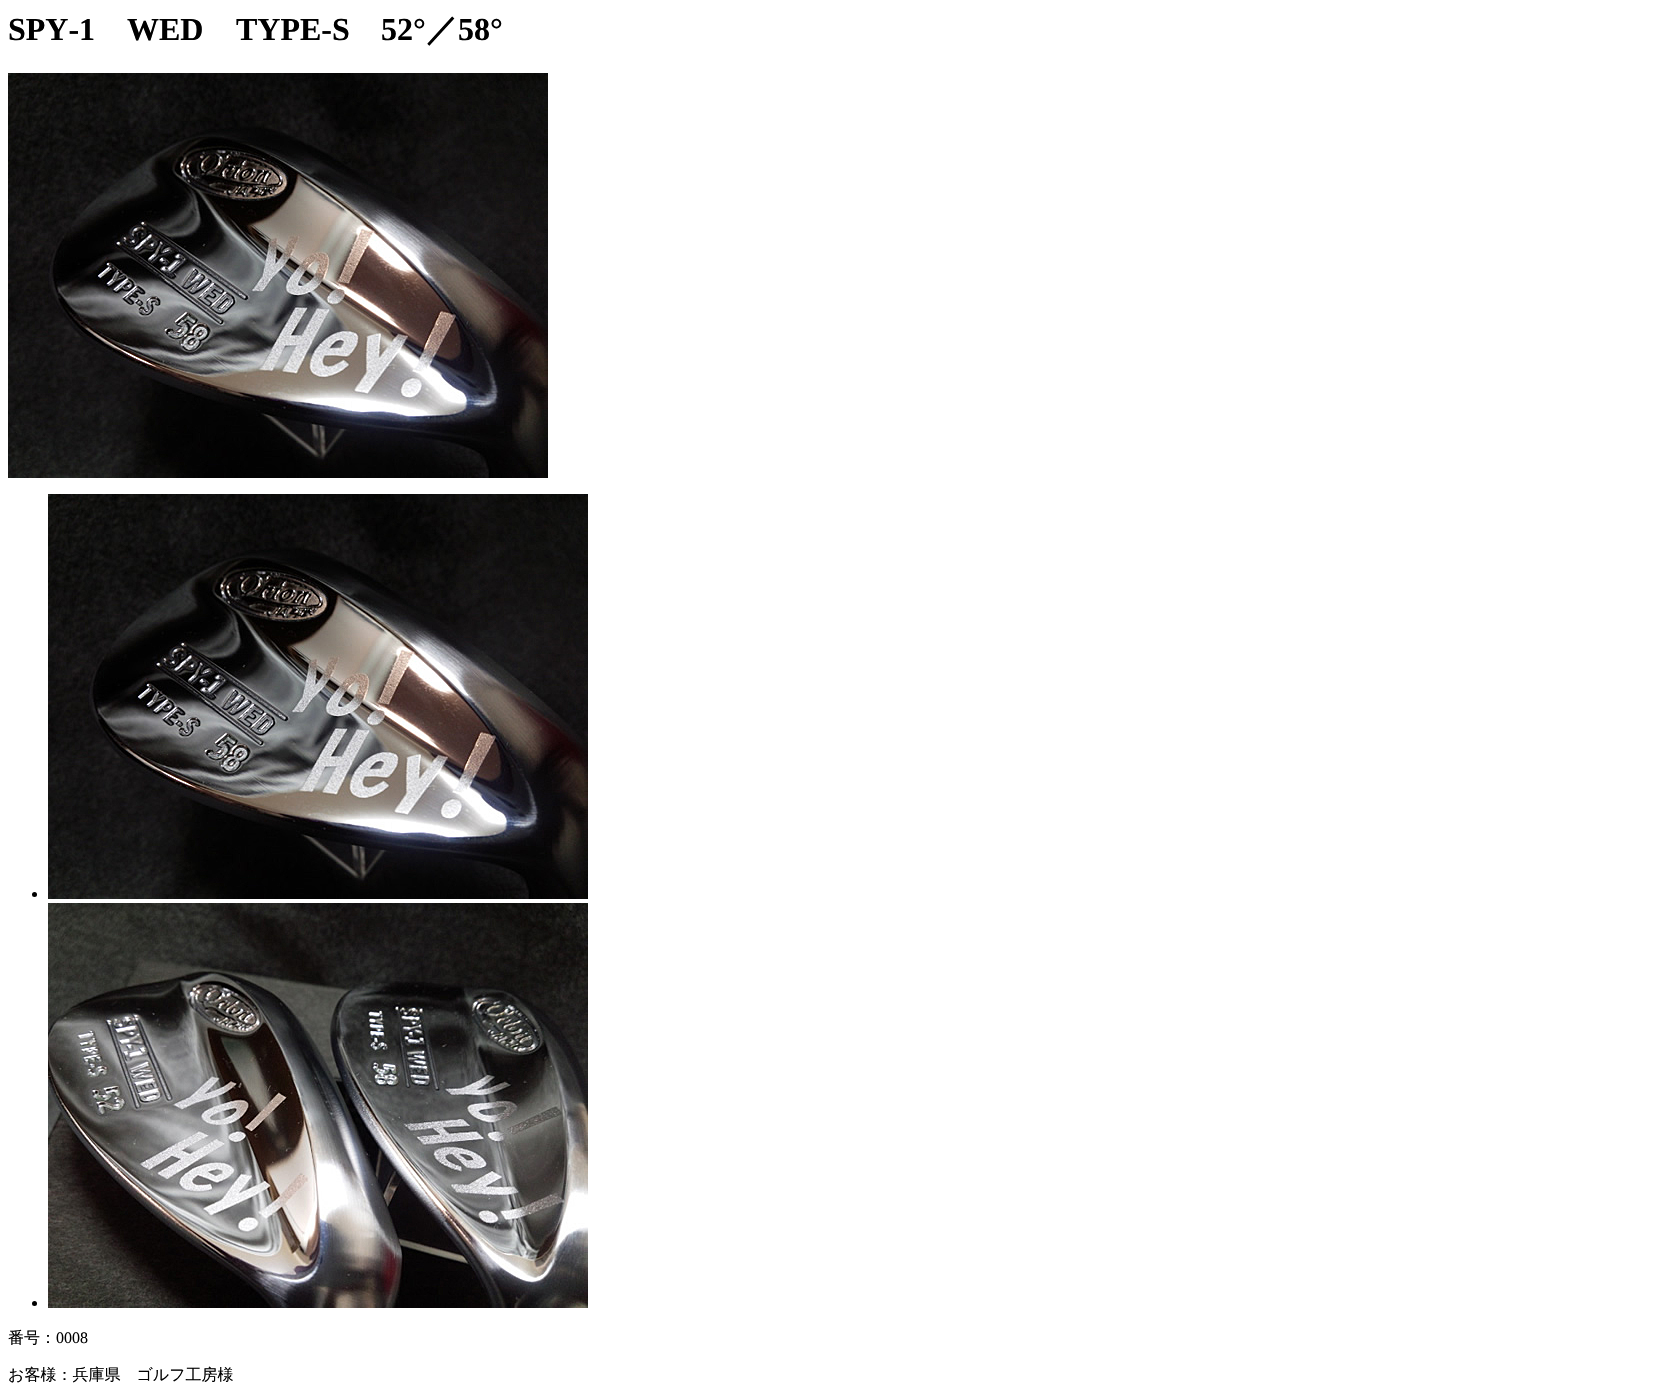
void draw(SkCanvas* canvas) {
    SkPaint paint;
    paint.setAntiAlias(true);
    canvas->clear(0xFFFFFFFF);
    SkFont font1(fontMgr->matchFamilyStyle("Liberation Serif", SkFontStyle::Bold()), 32);
    font1.setSubpixel(true);
    paint.setColor(0xFF000000);
    canvas->drawString("SPY-1", 8, 40, font1, paint);
    canvas->drawString("WED", 127, 40, font1, paint);
    canvas->drawString("TYPE-S", 236, 40, font1, paint);
    canvas->drawString("52°", 381, 40, font1, paint);
    SkFont font2(fontMgr->matchFamilyStyle("WenQuanYi Zen Hei", SkFontStyle::Bold()), 32);
    font2.setSubpixel(true);
    canvas->drawString("／", 426, 40, font2, paint);
    canvas->drawString("58°", 458, 40, font1, paint);
    canvas->drawImageRect(SkImages::DeferredFromEncodedData(SkData::MakeFromFileName("img1.png")), SkRect::MakeXYWH(8, 73, 540, 405), SkSamplingOptions());
    canvas->drawCircle(34.5f, 894.5f, 2.5f, paint);
    canvas->drawImageRect(SkImages::DeferredFromEncodedData(SkData::MakeFromFileName("img1.png")), SkRect::MakeXYWH(48, 494, 540, 405), SkSamplingOptions());
    canvas->drawCircle(34.5f, 1303.5f, 2.5f, paint);
    canvas->drawImageRect(SkImages::DeferredFromEncodedData(SkData::MakeFromFileName("img2.png")), SkRect::MakeXYWH(48, 903, 540, 405), SkSamplingOptions());
    SkFont font3(fontMgr->matchFamilyStyle("WenQuanYi Zen Hei", SkFontStyle(500, SkFontStyle::kNormal_Width, SkFontStyle::kUpright_Slant)), 16);
    font3.setSubpixel(true);
    canvas->drawString("番号：", 8, 1343, font3, paint);
    SkFont font4(fontMgr->matchFamilyStyle("Liberation Serif", SkFontStyle::Normal()), 16);
    font4.setSubpixel(true);
    canvas->drawString("0008", 56, 1343, font4, paint);
    canvas->drawString("お客様：兵庫県　ゴルフ工房様", 8, 1380, font3, paint);
}
